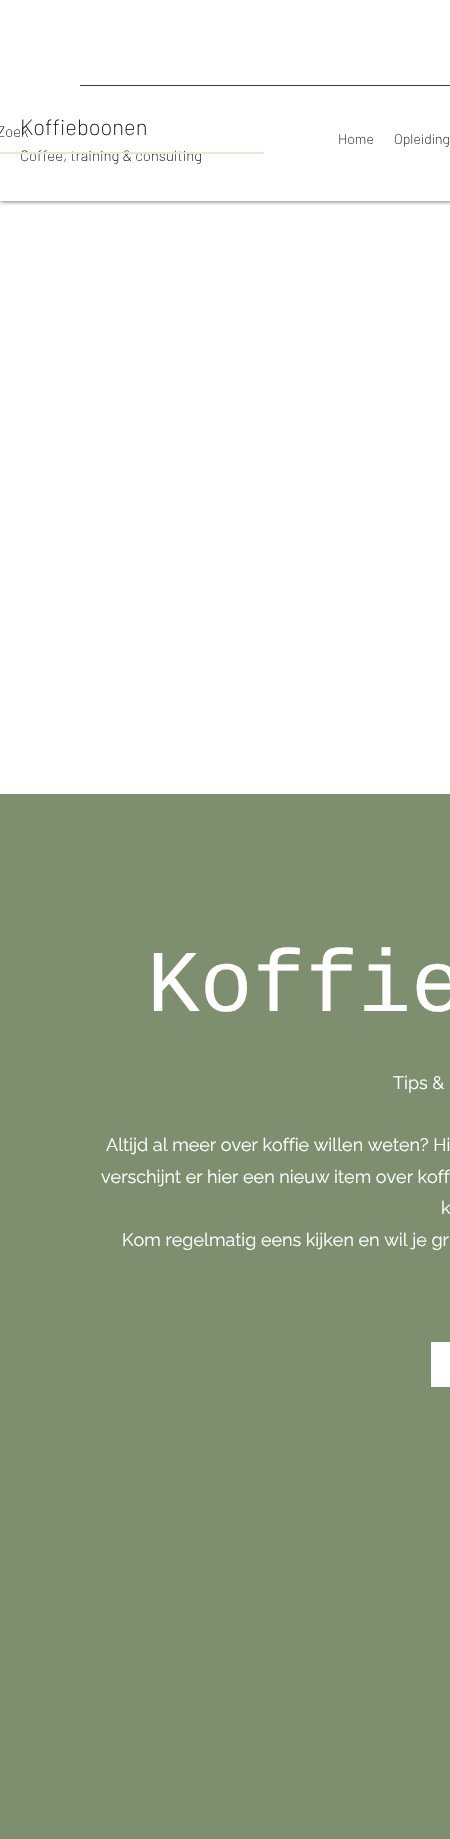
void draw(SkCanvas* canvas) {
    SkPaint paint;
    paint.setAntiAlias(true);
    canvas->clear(0xFFFFFFFF);
    canvas->save();
    canvas->clipRect(SkRect::MakeXYWH(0, 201, 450, 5));
    paint.setColor(0xB3000000);
    paint.setMaskFilter(SkMaskFilter::MakeBlur(kNormal_SkBlurStyle, 2.5f));
    canvas->drawRect(SkRect::MakeXYWH(0, 0, 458, 201), paint);
    paint.setMaskFilter(nullptr);
    canvas->restore();
    paint.setColor(0xFF3B3B3B);
    canvas->drawRect(SkRect::MakeXYWH(80, 85, 370, 1), paint);
    SkFont font1(fontMgr->matchFamilyStyle("Barlow", SkFontStyle(200, SkFontStyle::kNormal_Width, SkFontStyle::kUpright_Slant)), 22);
    font1.setSubpixel(true);
    paint.setColor(0xFF181818);
    canvas->drawString("Koffieboonen", 20, 135, font1, paint);
    SkFont font2(fontMgr->matchFamilyStyle("Barlow", SkFontStyle(200, SkFontStyle::kNormal_Width, SkFontStyle::kUpright_Slant)), 15);
    font2.setSubpixel(true);
    canvas->drawString("Coffee, training & consulting", 20, 161, font2, paint);
    paint.setColor(0xFFEBE5D6);
    canvas->drawRect(SkRect::MakeXYWH(0, 152, 264, 2), paint);
    paint.setColor(0xFF181818);
    canvas->drawString("Zoek", -3, 137, font2, paint);
    SkFont font3(fontMgr->matchFamilyStyle("Barlow", SkFontStyle(200, SkFontStyle::kNormal_Width, SkFontStyle::kUpright_Slant)), 14);
    font3.setSubpixel(true);
    canvas->drawString("Home", 338, 144, font3, paint);
    canvas->drawString("Opleiding", 394, 144, font3, paint);
    paint.setColor(0xFF7E8F6F);
    canvas->drawRect(SkRect::MakeXYWH(0, 794, 450, 1045), paint);
    SkFont font4(fontMgr->matchFamilyStyle("Liberation Mono", SkFontStyle::Normal()), 88);
    font4.setSubpixel(true);
    paint.setColor(0xFFFFFFFF);
    canvas->drawString("Koffie", 147, 1011, font4, paint);
    SkFont font5(fontMgr->matchFamilyStyle("Raleway", SkFontStyle::Normal()), 18);
    font5.setSubpixel(true);
    canvas->drawString("Tips &", 393, 1089, font5, paint);
    canvas->drawString("Altijd al meer over koffie willen weten? Hi", 106, 1151, font5, paint);
    canvas->drawString("verschijnt er hier een nieuw item over koff", 101, 1183, font5, paint);
    canvas->drawString("k", 441, 1214, font5, paint);
    canvas->drawString("Kom regelmatig eens kijken en wil je gr", 122, 1246, font5, paint);
    canvas->drawRect(SkRect::MakeXYWH(431, 1342, 19, 45), paint);
}
